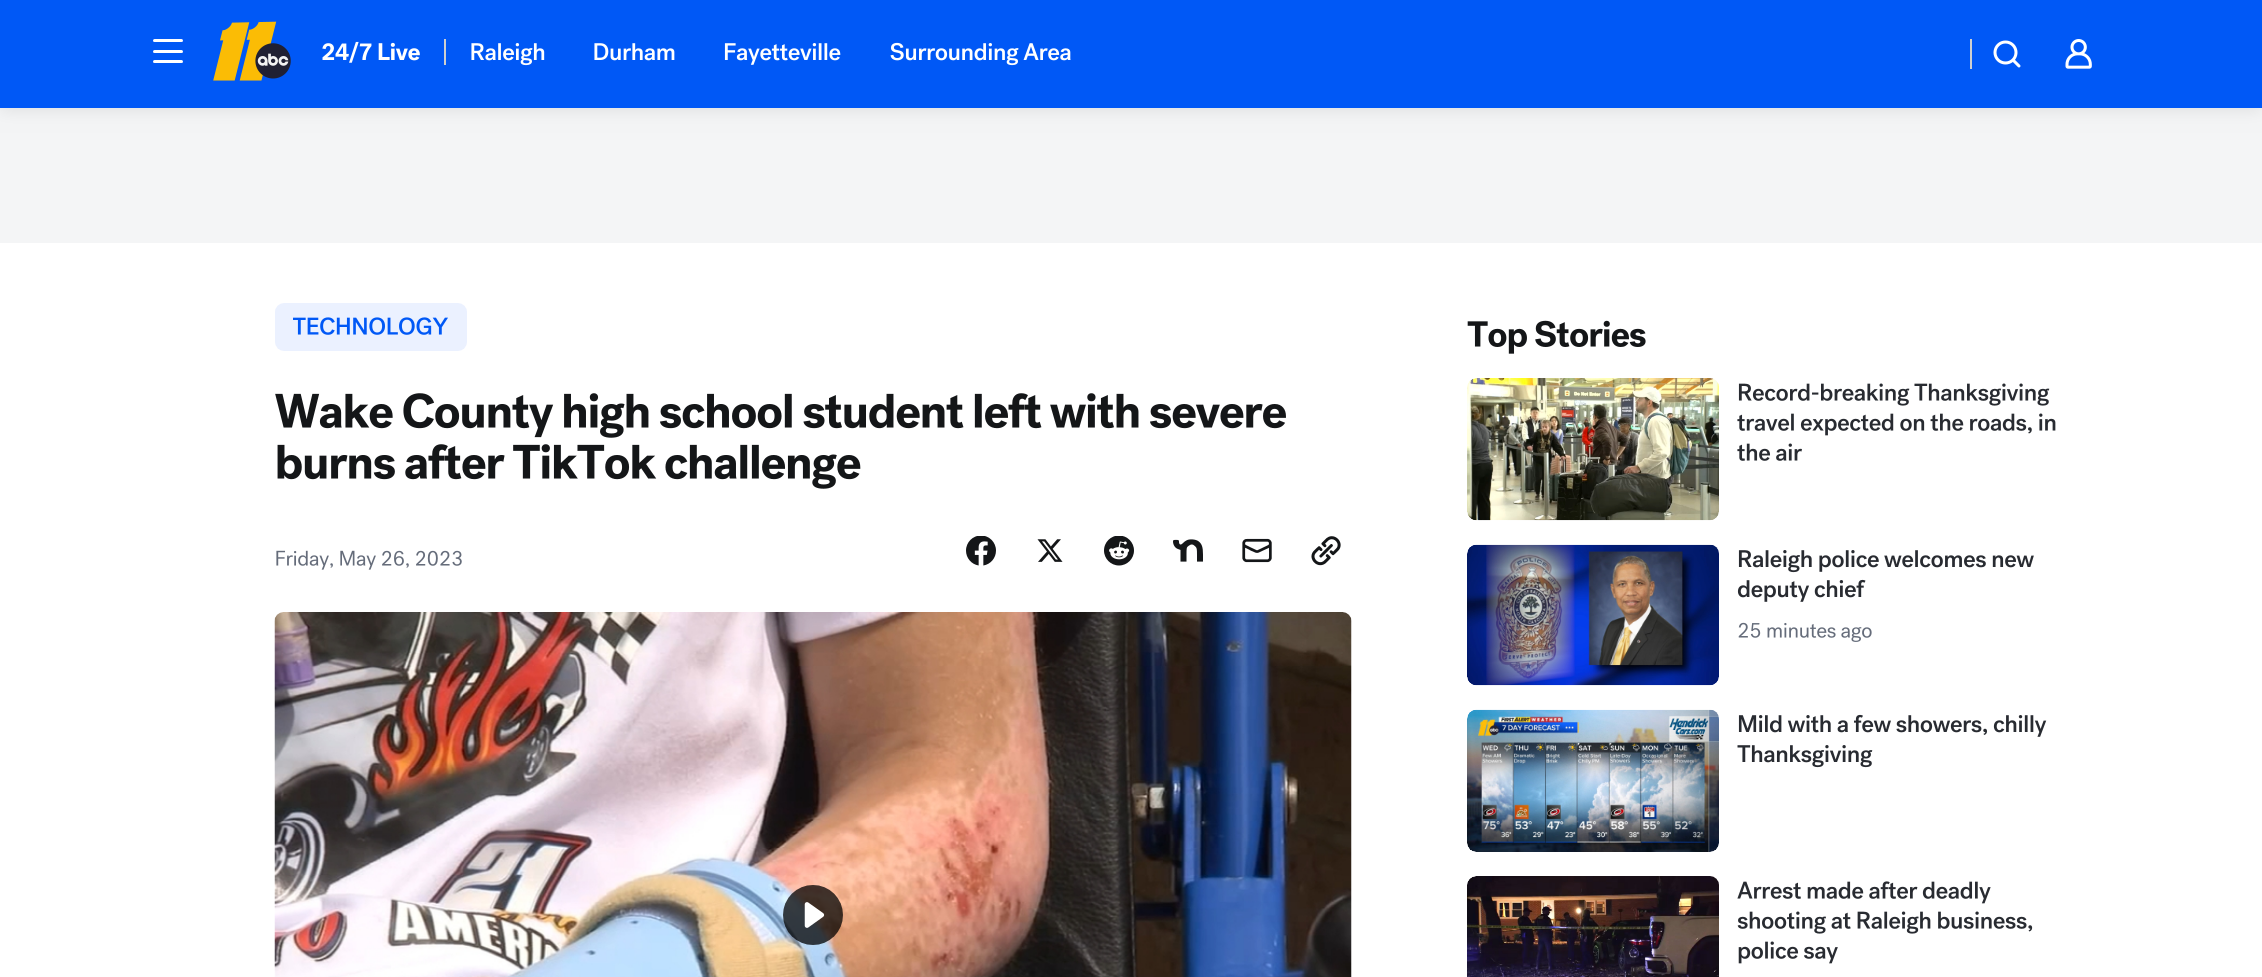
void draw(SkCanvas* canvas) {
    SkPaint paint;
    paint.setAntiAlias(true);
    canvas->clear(0xFFFFFFFF);
    paint.setColor(0xFFF4F5F6);
    canvas->drawRect(SkRect::MakeXYWH(0, 108, 2262, 135), paint);
    paint.setColor(0x14000000);
    paint.setMaskFilter(SkMaskFilter::MakeBlur(kNormal_SkBlurStyle, 7.5f));
    canvas->drawRect(SkRect::MakeXYWH(0, 3, 2262, 108), paint);
    paint.setMaskFilter(nullptr);
    paint.setColor(0xFF0058F6);
    canvas->drawRect(SkRect::MakeXYWH(0, 0, 2262, 108), paint);
    paint.setColor(0xFFFFFFFF);
    canvas->drawRoundRect(SkRect::MakeXYWH(153, 50, 30, 3), 1.5f, 1.5f, paint);
    canvas->drawRoundRect(SkRect::MakeXYWH(153, 39, 30, 3), 1.5f, 1.5f, paint);
    canvas->drawRoundRect(SkRect::MakeXYWH(153, 60, 30, 3), 1.5f, 1.5f, paint);
    canvas->drawImageRect(SkImages::DeferredFromEncodedData(SkData::MakeFromFileName("img1.png")), SkRect::MakeXYWH(213, 21, 78, 60), SkSamplingOptions());
    canvas->drawImageRect(SkImages::DeferredFromEncodedData(SkData::MakeFromFileName("img2.png")), SkRect::MakeXYWH(322, 41, 98, 22), SkSamplingOptions());
    paint.setColor(0xFFCECFCF);
    canvas->drawRect(SkRect::MakeXYWH(444, 39, 2, 26), paint);
    canvas->drawImageRect(SkImages::DeferredFromEncodedData(SkData::MakeFromFileName("img3.png")), SkRect::MakeXYWH(471, 43, 74, 23), SkSamplingOptions());
    canvas->drawImageRect(SkImages::DeferredFromEncodedData(SkData::MakeFromFileName("img4.png")), SkRect::MakeXYWH(594, 43, 81, 18), SkSamplingOptions());
    canvas->drawImageRect(SkImages::DeferredFromEncodedData(SkData::MakeFromFileName("img5.png")), SkRect::MakeXYWH(724, 43, 117, 22), SkSamplingOptions());
    canvas->drawImageRect(SkImages::DeferredFromEncodedData(SkData::MakeFromFileName("img6.png")), SkRect::MakeXYWH(890, 42, 181, 24), SkSamplingOptions());
    canvas->drawRect(SkRect::MakeXYWH(1970, 39, 2, 30), paint);
    canvas->drawImageRect(SkImages::DeferredFromEncodedData(SkData::MakeFromFileName("img7.png")), SkRect::MakeXYWH(1993, 40, 28, 28), SkSamplingOptions());
    canvas->drawImageRect(SkImages::DeferredFromEncodedData(SkData::MakeFromFileName("img8.png")), SkRect::MakeXYWH(2065, 39, 27, 30), SkSamplingOptions());
    paint.setColor(0xFFEBF1FF);
    canvas->drawRoundRect(SkRect::MakeXYWH(275, 303, 192, 48), 9, 9, paint);
    canvas->drawImageRect(SkImages::DeferredFromEncodedData(SkData::MakeFromFileName("img9.png")), SkRect::MakeXYWH(293, 317, 155, 18), SkSamplingOptions());
    canvas->drawImageRect(SkImages::DeferredFromEncodedData(SkData::MakeFromFileName("img10.png")), SkRect::MakeXYWH(275, 393, 1011, 45), SkSamplingOptions());
    canvas->drawImageRect(SkImages::DeferredFromEncodedData(SkData::MakeFromFileName("img11.png")), SkRect::MakeXYWH(277, 444, 584, 45), SkSamplingOptions());
    canvas->drawImageRect(SkImages::DeferredFromEncodedData(SkData::MakeFromFileName("img12.png")), SkRect::MakeXYWH(276, 550, 186, 20), SkSamplingOptions());
    canvas->drawImageRect(SkImages::DeferredFromEncodedData(SkData::MakeFromFileName("img13.png")), SkRect::MakeXYWH(966, 536, 30, 30), SkSamplingOptions());
    canvas->drawImageRect(SkImages::DeferredFromEncodedData(SkData::MakeFromFileName("img14.png")), SkRect::MakeXYWH(1037, 539, 26, 23), SkSamplingOptions());
    canvas->drawImageRect(SkImages::DeferredFromEncodedData(SkData::MakeFromFileName("img15.png")), SkRect::MakeXYWH(1104, 536, 30, 30), SkSamplingOptions());
    canvas->drawImageRect(SkImages::DeferredFromEncodedData(SkData::MakeFromFileName("img16.png")), SkRect::MakeXYWH(1173, 539, 30, 23), SkSamplingOptions());
    canvas->drawImageRect(SkImages::DeferredFromEncodedData(SkData::MakeFromFileName("img17.png")), SkRect::MakeXYWH(1242, 538, 30, 25), SkSamplingOptions());
    canvas->drawImageRect(SkImages::DeferredFromEncodedData(SkData::MakeFromFileName("img18.png")), SkRect::MakeXYWH(1311, 536, 30, 30), SkSamplingOptions());
    canvas->drawImageRect(SkImages::DeferredFromEncodedData(SkData::MakeFromFileName("img19.png")), SkRect::MakeXYWH(274, 612, 1078, 365), SkSamplingOptions());
    paint.setColor(0xBF000000);
    canvas->drawCircle(813, 915, 30, paint);
    canvas->drawImageRect(SkImages::DeferredFromEncodedData(SkData::MakeFromFileName("img20.png")), SkRect::MakeXYWH(804, 902, 21, 26), SkSamplingOptions());
    canvas->drawImageRect(SkImages::DeferredFromEncodedData(SkData::MakeFromFileName("img21.png")), SkRect::MakeXYWH(1467, 320, 179, 34), SkSamplingOptions());
    canvas->drawImageRect(SkImages::DeferredFromEncodedData(SkData::MakeFromFileName("img22.png")), SkRect::MakeXYWH(1467, 378, 252, 143), SkSamplingOptions());
    canvas->drawImageRect(SkImages::DeferredFromEncodedData(SkData::MakeFromFileName("img23.png")), SkRect::MakeXYWH(1738, 383, 312, 23), SkSamplingOptions());
    canvas->drawImageRect(SkImages::DeferredFromEncodedData(SkData::MakeFromFileName("img24.png")), SkRect::MakeXYWH(1737, 413, 319, 23), SkSamplingOptions());
    canvas->drawImageRect(SkImages::DeferredFromEncodedData(SkData::MakeFromFileName("img25.png")), SkRect::MakeXYWH(1737, 443, 65, 18), SkSamplingOptions());
    canvas->drawImageRect(SkImages::DeferredFromEncodedData(SkData::MakeFromFileName("img26.png")), SkRect::MakeXYWH(1467, 544, 252, 142), SkSamplingOptions());
    canvas->drawImageRect(SkImages::DeferredFromEncodedData(SkData::MakeFromFileName("img27.png")), SkRect::MakeXYWH(1738, 550, 296, 23), SkSamplingOptions());
    canvas->drawImageRect(SkImages::DeferredFromEncodedData(SkData::MakeFromFileName("img28.png")), SkRect::MakeXYWH(1737, 579, 129, 23), SkSamplingOptions());
    canvas->drawImageRect(SkImages::DeferredFromEncodedData(SkData::MakeFromFileName("img29.png")), SkRect::MakeXYWH(1738, 622, 134, 20), SkSamplingOptions());
    canvas->drawImageRect(SkImages::DeferredFromEncodedData(SkData::MakeFromFileName("img30.png")), SkRect::MakeXYWH(1467, 709, 252, 143), SkSamplingOptions());
    canvas->drawImageRect(SkImages::DeferredFromEncodedData(SkData::MakeFromFileName("img31.png")), SkRect::MakeXYWH(1738, 714, 309, 23), SkSamplingOptions());
    canvas->drawImageRect(SkImages::DeferredFromEncodedData(SkData::MakeFromFileName("img32.png")), SkRect::MakeXYWH(1737, 745, 136, 23), SkSamplingOptions());
    canvas->drawImageRect(SkImages::DeferredFromEncodedData(SkData::MakeFromFileName("img33.png")), SkRect::MakeXYWH(1467, 876, 252, 101), SkSamplingOptions());
    canvas->drawImageRect(SkImages::DeferredFromEncodedData(SkData::MakeFromFileName("img34.png")), SkRect::MakeXYWH(1737, 881, 254, 23), SkSamplingOptions());
    canvas->drawImageRect(SkImages::DeferredFromEncodedData(SkData::MakeFromFileName("img35.png")), SkRect::MakeXYWH(1737, 911, 296, 23), SkSamplingOptions());
    canvas->drawImageRect(SkImages::DeferredFromEncodedData(SkData::MakeFromFileName("img36.png")), SkRect::MakeXYWH(1738, 941, 100, 23), SkSamplingOptions());
}
